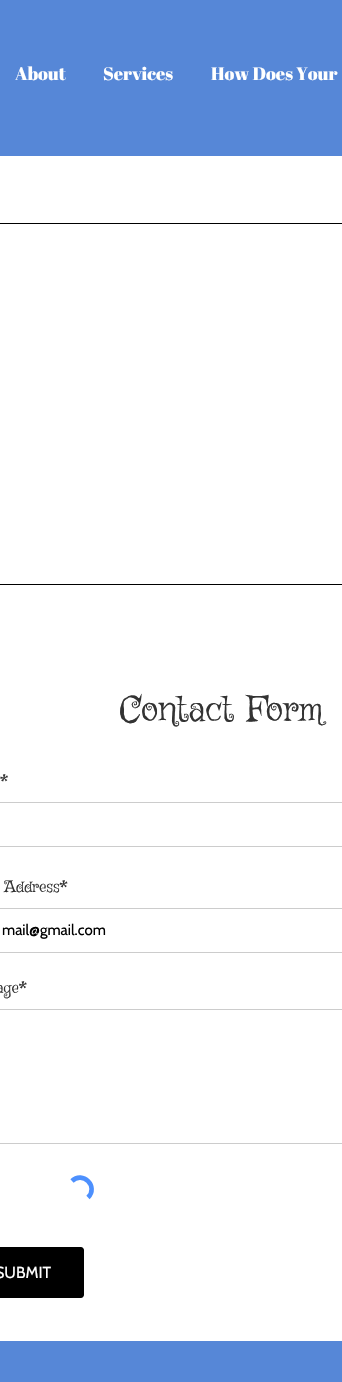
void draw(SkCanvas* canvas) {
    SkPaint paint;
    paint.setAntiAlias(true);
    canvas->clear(0xFFFFFFFF);
    paint.setColor(0xFF5687D7);
    canvas->drawRect(SkRect::MakeXYWH(0, 0, 342, 156), paint);
    SkFont font1(fontMgr->matchFamilyStyle("Abril Fatface", SkFontStyle::Normal()), 18);
    font1.setSubpixel(true);
    paint.setColor(0xFFFFFFFF);
    canvas->drawString("About", 15, 80, font1, paint);
    canvas->drawString("Services", 103, 80, font1, paint);
    canvas->drawString("How Does Your", 211, 80, font1, paint);
    paint.setStyle(SkPaint::kStroke_Style);
    paint.setStrokeWidth(1);
    paint.setColor(0xFF000000);
    canvas->drawRect(SkRect::MakeXYWH(-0.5f, 223.5f, 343, 361), paint);
    SkFont font2(fontMgr->matchFamilyStyle("Griffy", SkFontStyle::Normal()), 36);
    font2.setSubpixel(true);
    paint.setStyle(SkPaint::kFill_Style);
    paint.setColor(0xFF333333);
    canvas->drawString("Contact Form", 119, 721, font2, paint);
    SkFont font3(fontMgr->matchFamilyStyle("Griffy", SkFontStyle::Normal()), 16);
    font3.setSubpixel(true);
    canvas->drawString("*", 0, 786, font3, paint);
    paint.setStyle(SkPaint::kStroke_Style);
    paint.setColor(0xFFCCCCCC);
    canvas->drawRect(SkRect::MakeXYWH(-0.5f, 802.5f, 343, 44), paint);
    paint.setStyle(SkPaint::kFill_Style);
    paint.setColor(0xFF333333);
    canvas->drawString("Address*", 4, 892, font3, paint);
    paint.setStyle(SkPaint::kStroke_Style);
    paint.setColor(0xFFCCCCCC);
    canvas->drawRect(SkRect::MakeXYWH(-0.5f, 908.5f, 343, 44), paint);
    SkFont font4(fontMgr->matchFamilyStyle("Cabin", SkFontStyle::Normal()), 15);
    font4.setSubpixel(true);
    paint.setStyle(SkPaint::kFill_Style);
    paint.setColor(0xFF000000);
    canvas->drawString("mail@gmail.com", 2, 935, font4, paint);
    paint.setColor(0xFF333333);
    canvas->drawString("age*", -4, 993, font3, paint);
    paint.setStyle(SkPaint::kStroke_Style);
    paint.setColor(0xFFCCCCCC);
    canvas->drawRect(SkRect::MakeXYWH(-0.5f, 1009.5f, 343, 134), paint);
    paint.setStrokeWidth(4.6f);
    paint.setColor(0xFF4D90FE);
    canvas->drawPath(SkPathBuilder().moveTo(72, 1181).cubicTo(82.5f, 1170.5f, 99, 1186.5f, 88, 1197.5f).detach(), paint);
    paint.setStyle(SkPaint::kFill_Style);
    paint.setColor(0xFF000000);
    canvas->drawPath(SkPathBuilder().moveTo(0, 1247).lineTo(81, 1247).cubicTo(82.5f, 1247, 84, 1248.5f, 84, 1250).lineTo(84, 1295).cubicTo(84, 1296.5f, 82.5f, 1298, 81, 1298).lineTo(0, 1298).close().detach(), paint);
    SkFont font5(fontMgr->matchFamilyStyle("Cabin", SkFontStyle::Normal()), 16);
    font5.setSubpixel(true);
    paint.setColor(0xFFFFFFFF);
    canvas->drawString("SUBMIT", -5, 1278, font5, paint);
    paint.setColor(0xFF5687D7);
    canvas->drawRect(SkRect::MakeXYWH(0, 1341, 342, 41), paint);
}
